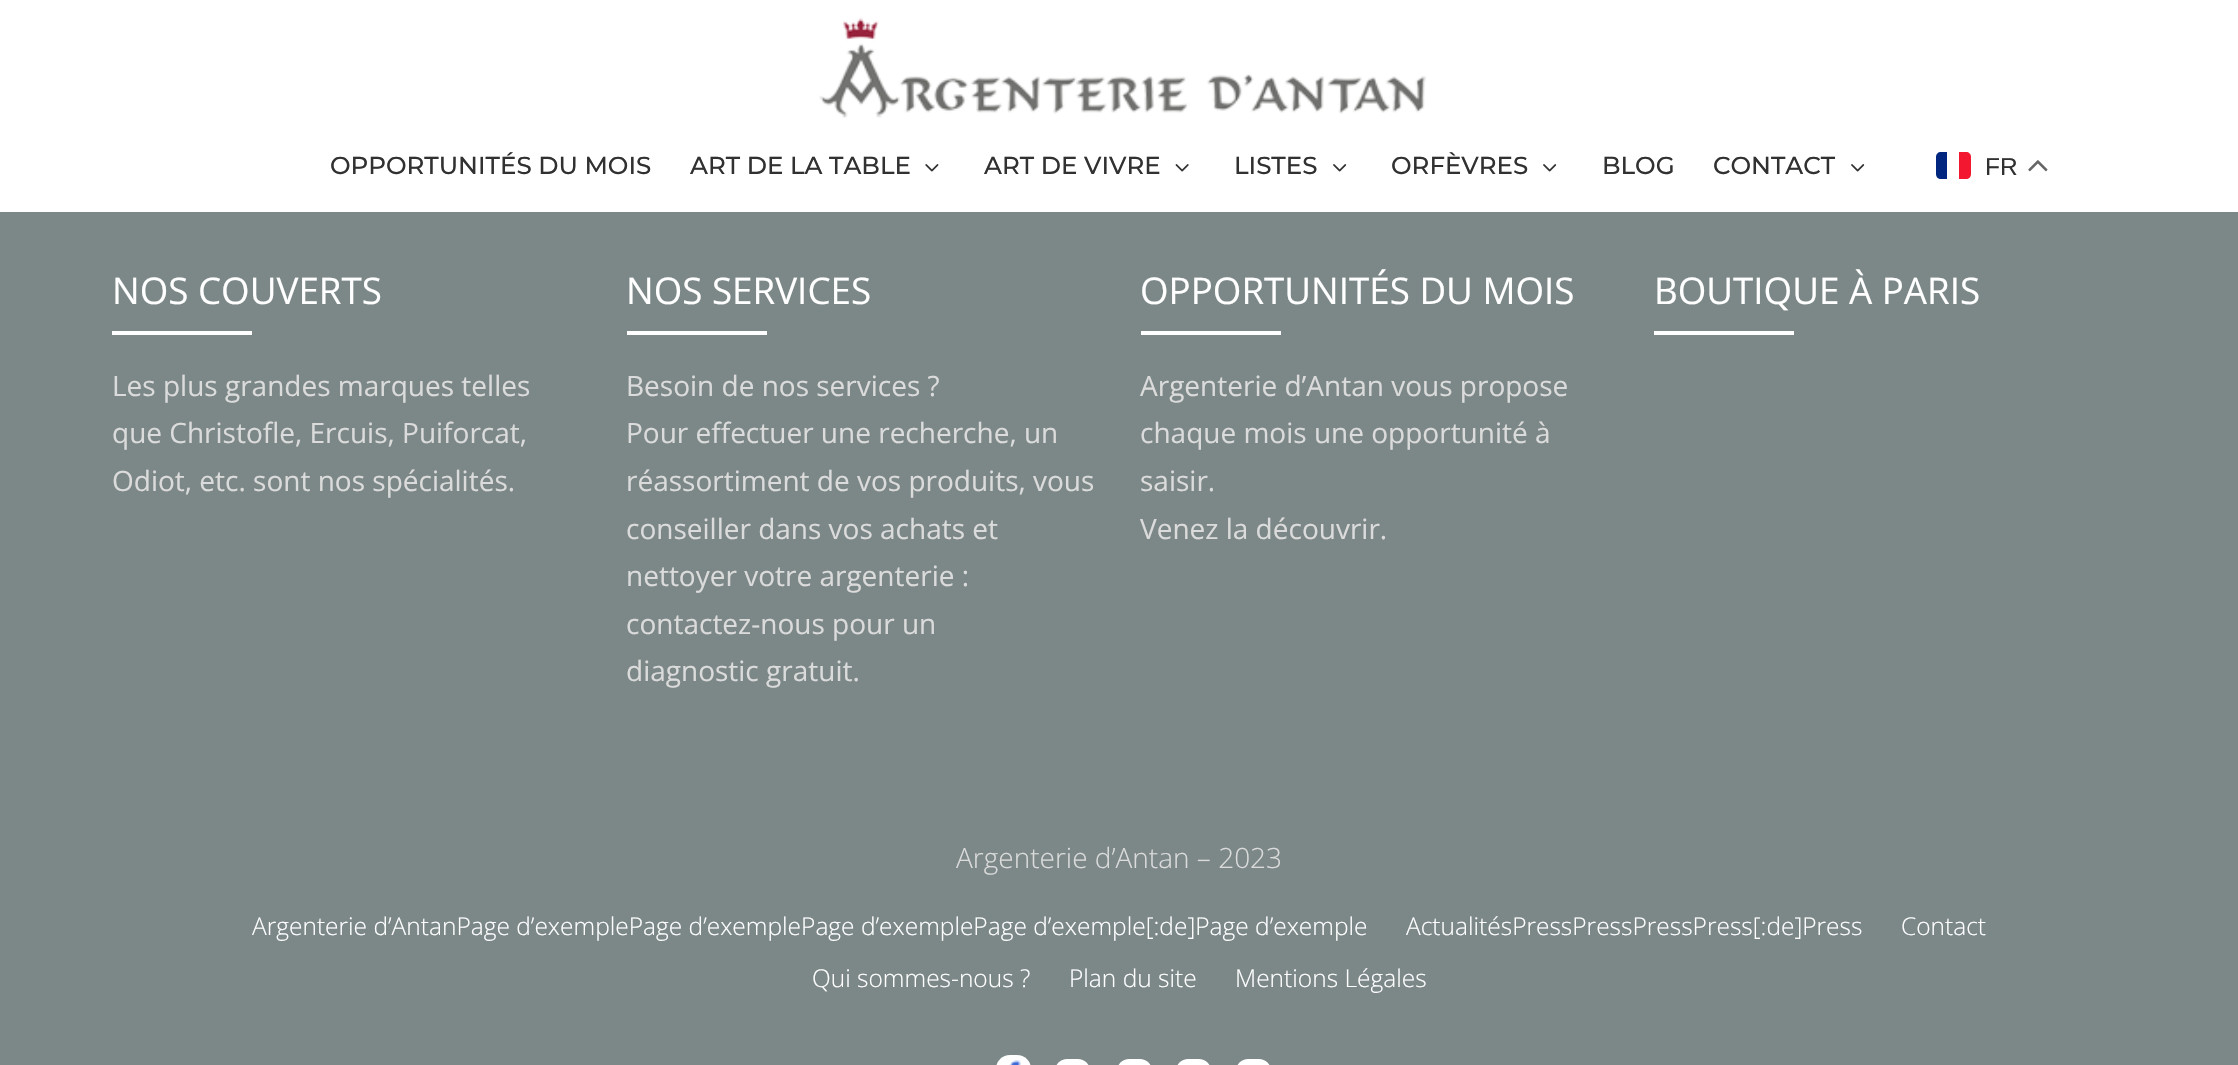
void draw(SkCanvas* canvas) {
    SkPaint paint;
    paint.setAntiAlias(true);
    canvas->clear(0xFF7C8787);
    paint.setColor(0xFFFFFFFF);
    canvas->drawRect(SkRect::MakeXYWH(0, 0, 2238, 212), paint);
    canvas->drawImageRect(SkImages::DeferredFromEncodedData(SkData::MakeFromFileName("img1.png")), SkRect::MakeXYWH(819, 17, 608, 101), SkSamplingOptions());
    SkFont font1(fontMgr->matchFamilyStyle("Montserrat", SkFontStyle(500, SkFontStyle::kNormal_Width, SkFontStyle::kUpright_Slant)), 24.5f);
    font1.setSubpixel(true);
    paint.setColor(0xFF313131);
    canvas->drawString("OPPORTUNITÉS DU MOIS", 330, 174, font1, paint);
    canvas->drawString("ART DE LA TABLE", 690, 174, font1, paint);
    canvas->drawImageRect(SkImages::DeferredFromEncodedData(SkData::MakeFromFileName("img2.png")), SkRect::MakeXYWH(925, 164, 14, 8), SkSamplingOptions());
    canvas->drawString("ART DE VIVRE", 984, 174, font1, paint);
    canvas->drawImageRect(SkImages::DeferredFromEncodedData(SkData::MakeFromFileName("img3.png")), SkRect::MakeXYWH(1175, 164, 14, 8), SkSamplingOptions());
    canvas->drawString("LISTES", 1234, 174, font1, paint);
    canvas->drawImageRect(SkImages::DeferredFromEncodedData(SkData::MakeFromFileName("img4.png")), SkRect::MakeXYWH(1333, 164, 14, 8), SkSamplingOptions());
    canvas->drawString("ORFÈVRES", 1391, 174, font1, paint);
    canvas->drawImageRect(SkImages::DeferredFromEncodedData(SkData::MakeFromFileName("img4.png")), SkRect::MakeXYWH(1543, 164, 14, 8), SkSamplingOptions());
    canvas->drawString("BLOG", 1602, 174, font1, paint);
    canvas->drawString("CONTACT", 1713, 174, font1, paint);
    canvas->drawImageRect(SkImages::DeferredFromEncodedData(SkData::MakeFromFileName("img4.png")), SkRect::MakeXYWH(1851, 164, 14, 8), SkSamplingOptions());
    paint.setColor(0xFF00267F);
    canvas->drawPath(SkPathBuilder().moveTo(1941, 152).lineTo(1947, 152).lineTo(1947, 179).lineTo(1941, 179).cubicTo(1938, 179, 1936, 177, 1936, 174).lineTo(1936, 157).cubicTo(1936, 154, 1938, 152, 1941, 152).close().detach(), paint);
    paint.setColor(0xFFF31830);
    canvas->drawPath(SkPathBuilder().moveTo(1959, 152).lineTo(1966, 152).cubicTo(1969, 152, 1971, 154, 1971, 157).lineTo(1971, 174).cubicTo(1971, 177, 1969, 179, 1966, 179).lineTo(1959, 179).close().detach(), paint);
    SkFont font2(fontMgr->matchFamilyStyle("Liberation Sans", SkFontStyle::Normal()), 24.5f);
    font2.setSubpixel(true);
    paint.setColor(0xFF313131);
    canvas->drawString("FR", 1985, 175, font2, paint);
    canvas->drawImageRect(SkImages::DeferredFromEncodedData(SkData::MakeFromFileName("img5.png")), SkRect::MakeXYWH(2028, 160, 20, 12), SkSamplingOptions());
    SkFont font3(fontMgr->matchFamilyStyle("Open Sans", SkFontStyle::Normal()), 36.75f);
    font3.setSubpixel(true);
    paint.setColor(0xFFFFFFFF);
    canvas->drawString("NOS COUVERTS", 112, 304, font3, paint);
    canvas->drawRect(SkRect::MakeXYWH(112, 331, 140, 4), paint);
    SkFont font4(fontMgr->matchFamilyStyle("Open Sans", SkFontStyle::Normal()), 28);
    font4.setSubpixel(true);
    paint.setColor(0xFFDBDBDB);
    canvas->drawString("Les plus grandes marques telles", 112, 396, font4, paint);
    canvas->drawString("que Christofle, Ercuis, Puiforcat,", 112, 443, font4, paint);
    canvas->drawString("Odiot, etc. sont nos spécialités.", 112, 491, font4, paint);
    paint.setColor(0xFFFFFFFF);
    canvas->drawString("NOS SERVICES", 626, 304, font3, paint);
    canvas->drawRect(SkRect::MakeXYWH(627, 331, 140, 4), paint);
    paint.setColor(0xFFDBDBDB);
    canvas->drawString("Besoin de nos services ?", 626, 396, font4, paint);
    canvas->drawString("Pour effectuer une recherche, un", 626, 443, font4, paint);
    canvas->drawString("réassortiment de vos produits, vous", 626, 491, font4, paint);
    canvas->drawString("conseiller dans vos achats et", 626, 539, font4, paint);
    canvas->drawString("nettoyer votre argenterie :", 626, 586, font4, paint);
    canvas->drawString("contactez-nous pour un", 626, 634, font4, paint);
    canvas->drawString("diagnostic gratuit.", 626, 681, font4, paint);
    paint.setColor(0xFFFFFFFF);
    canvas->drawString("OPPORTUNITÉS DU MOIS", 1140, 304, font3, paint);
    canvas->drawRect(SkRect::MakeXYWH(1141, 331, 140, 4), paint);
    paint.setColor(0xFFDBDBDB);
    canvas->drawString("Argenterie d’Antan vous propose", 1140, 396, font4, paint);
    canvas->drawString("chaque mois une opportunité à", 1140, 443, font4, paint);
    canvas->drawString("saisir.", 1140, 491, font4, paint);
    canvas->drawString("Venez la découvrir.", 1140, 539, font4, paint);
    paint.setColor(0xFFFFFFFF);
    canvas->drawString("BOUTIQUE À PARIS", 1654, 304, font3, paint);
    canvas->drawRect(SkRect::MakeXYWH(1654, 331, 140, 4), paint);
    SkFont font5(fontMgr->matchFamilyStyle("Open Sans", SkFontStyle(300, SkFontStyle::kNormal_Width, SkFontStyle::kUpright_Slant)), 28);
    font5.setSubpixel(true);
    paint.setColor(0xFFDBDBDB);
    canvas->drawString("Argenterie d’Antan – 2023", 956, 868, font5, paint);
    SkFont font6(fontMgr->matchFamilyStyle("Open Sans", SkFontStyle(300, SkFontStyle::kNormal_Width, SkFontStyle::kUpright_Slant)), 24.5f);
    font6.setSubpixel(true);
    paint.setColor(0xFFFFFFFF);
    canvas->drawString("Argenterie d’AntanPage d’exemplePage d’exemplePage d’exemplePage d’exemple[:de]Page d’exemple", 252, 935, font6, paint);
    canvas->drawString("ActualitésPressPressPressPress[:de]Press", 1406, 935, font6, paint);
    canvas->drawString("Contact", 1901, 935, font6, paint);
    canvas->drawString("Qui sommes-nous ?", 812, 987, font6, paint);
    canvas->drawString("Plan du site", 1069, 987, font6, paint);
    canvas->drawString("Mentions Légales", 1235, 987, font6, paint);
    canvas->drawRoundRect(SkRect::MakeXYWH(996, 1055, 35, 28), 17.5f, 17.5f, paint);
    canvas->drawImageRect(SkImages::DeferredFromEncodedData(SkData::MakeFromFileName("img6.png")), SkRect::MakeXYWH(1009, 1060, 12, 5), SkSamplingOptions());
    canvas->drawRoundRect(SkRect::MakeXYWH(1055, 1059, 35, 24), 17.5f, 17.5f, paint);
    canvas->drawRoundRect(SkRect::MakeXYWH(1117, 1059, 35, 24), 17.5f, 17.5f, paint);
    canvas->drawRoundRect(SkRect::MakeXYWH(1176, 1059, 35, 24), 17.5f, 17.5f, paint);
    canvas->drawRoundRect(SkRect::MakeXYWH(1236, 1059, 35, 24), 17.5f, 17.5f, paint);
}
